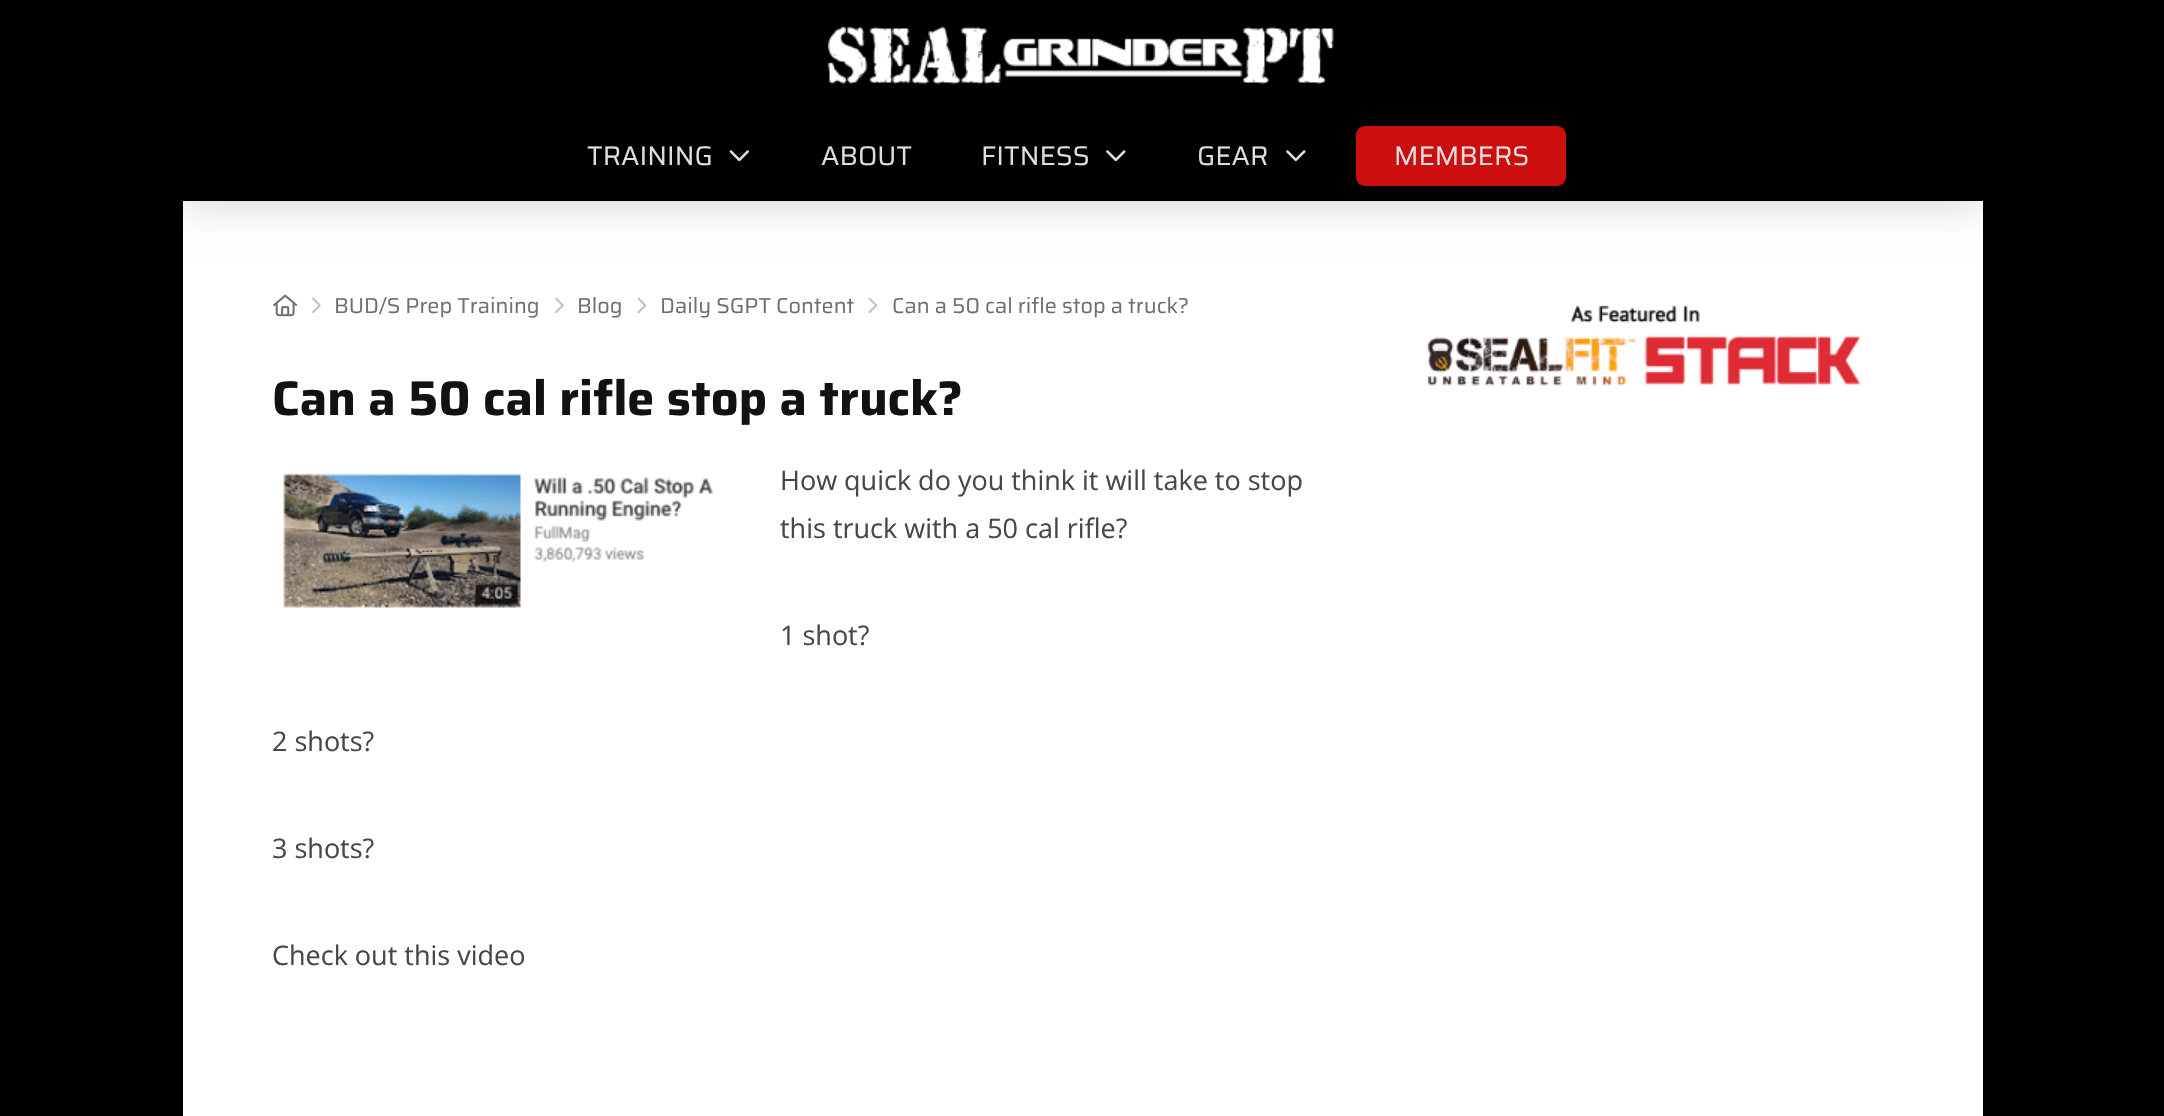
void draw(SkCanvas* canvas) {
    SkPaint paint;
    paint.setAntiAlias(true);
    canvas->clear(0xFF000000);
    paint.setColor(0xFFFFFFFF);
    canvas->drawRect(SkRect::MakeXYWH(183, 201, 1800, 915), paint);
    canvas->save();
    canvas->clipRect(SkRect::MakeXYWH(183, 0, 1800, 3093));
    paint.setColor(0x26000000);
    paint.setMaskFilter(SkMaskFilter::MakeBlur(kNormal_SkBlurStyle, 19));
    canvas->drawRect(SkRect::MakeXYWH(183, 5, 1800, 201), paint);
    paint.setMaskFilter(nullptr);
    canvas->restore();
    canvas->drawImageRect(SkImages::DeferredFromEncodedData(SkData::MakeFromFileName("img1.png")), SkRect::MakeXYWH(827, 26, 507, 59), SkSamplingOptions());
    SkFont font1(fontMgr->matchFamilyStyle("Saira", SkFontStyle::Normal()), 27);
    font1.setSubpixel(true);
    paint.setColor(0xFFDEDEDE);
    canvas->drawString("TRAINING", 587, 165, font1, paint);
    canvas->drawImageRect(SkImages::DeferredFromEncodedData(SkData::MakeFromFileName("img2.png")), SkRect::MakeXYWH(729, 150, 20, 12), SkSamplingOptions());
    canvas->drawString("ABOUT", 821, 165, font1, paint);
    canvas->drawString("FITNESS", 981, 165, font1, paint);
    canvas->drawImageRect(SkImages::DeferredFromEncodedData(SkData::MakeFromFileName("img3.png")), SkRect::MakeXYWH(1106, 150, 20, 12), SkSamplingOptions());
    canvas->drawString("GEAR", 1197, 165, font1, paint);
    canvas->drawImageRect(SkImages::DeferredFromEncodedData(SkData::MakeFromFileName("img3.png")), SkRect::MakeXYWH(1286, 150, 20, 12), SkSamplingOptions());
    paint.setColor(0xFFCD0E0E);
    canvas->drawRoundRect(SkRect::MakeXYWH(1356, 126, 210, 60), 9, 9, paint);
    paint.setColor(0xFFDEDEDE);
    canvas->drawString("MEMBERS", 1394, 165, font1, paint);
    canvas->drawImageRect(SkImages::DeferredFromEncodedData(SkData::MakeFromFileName("img4.png")), SkRect::MakeXYWH(273, 294, 24, 23), SkSamplingOptions());
    canvas->drawImageRect(SkImages::DeferredFromEncodedData(SkData::MakeFromFileName("img5.png")), SkRect::MakeXYWH(312, 297, 9, 16), SkSamplingOptions());
    SkFont font2(fontMgr->matchFamilyStyle("Saira", SkFontStyle::Normal()), 21.6f);
    font2.setSubpixel(true);
    paint.setColor(0xFF6F6F6F);
    canvas->drawString("BUD/S Prep Training", 334, 313, font2, paint);
    canvas->drawImageRect(SkImages::DeferredFromEncodedData(SkData::MakeFromFileName("img5.png")), SkRect::MakeXYWH(555, 297, 9, 16), SkSamplingOptions());
    canvas->drawString("Blog", 577, 313, font2, paint);
    canvas->drawImageRect(SkImages::DeferredFromEncodedData(SkData::MakeFromFileName("img6.png")), SkRect::MakeXYWH(637, 297, 10, 16), SkSamplingOptions());
    canvas->drawString("Daily SGPT Content", 660, 313, font2, paint);
    canvas->drawImageRect(SkImages::DeferredFromEncodedData(SkData::MakeFromFileName("img6.png")), SkRect::MakeXYWH(868, 297, 10, 16), SkSamplingOptions());
    canvas->drawString("Can a 50 cal rifle stop a truck?", 892, 313, font2, paint);
    SkFont font3(fontMgr->matchFamilyStyle("Saira", SkFontStyle::Bold()), 48.6f);
    font3.setSubpixel(true);
    paint.setColor(0xFF121212);
    canvas->drawString("Can a 50 cal rifle stop a truck?", 272, 415, font3, paint);
    canvas->drawImageRect(SkImages::DeferredFromEncodedData(SkData::MakeFromFileName("img7.png")), SkRect::MakeXYWH(283, 473, 430, 135), SkSamplingOptions());
    SkFont font4(fontMgr->matchFamilyStyle("Open Sans", SkFontStyle::Normal()), 27);
    font4.setSubpixel(true);
    paint.setColor(0xFF474747);
    canvas->drawString("How quick do you think it will take to stop", 780, 490, font4, paint);
    canvas->drawString("this truck with a 50 cal rifle?", 780, 538, font4, paint);
    canvas->drawString("1 shot?", 780, 645, font4, paint);
    canvas->drawString("2 shots?", 272, 751, font4, paint);
    canvas->drawString("3 shots?", 272, 858, font4, paint);
    canvas->drawString("Check out this video", 272, 965, font4, paint);
    canvas->drawImageRect(SkImages::DeferredFromEncodedData(SkData::MakeFromFileName("img8.png")), SkRect::MakeXYWH(1427, 305, 434, 81), SkSamplingOptions());
}
